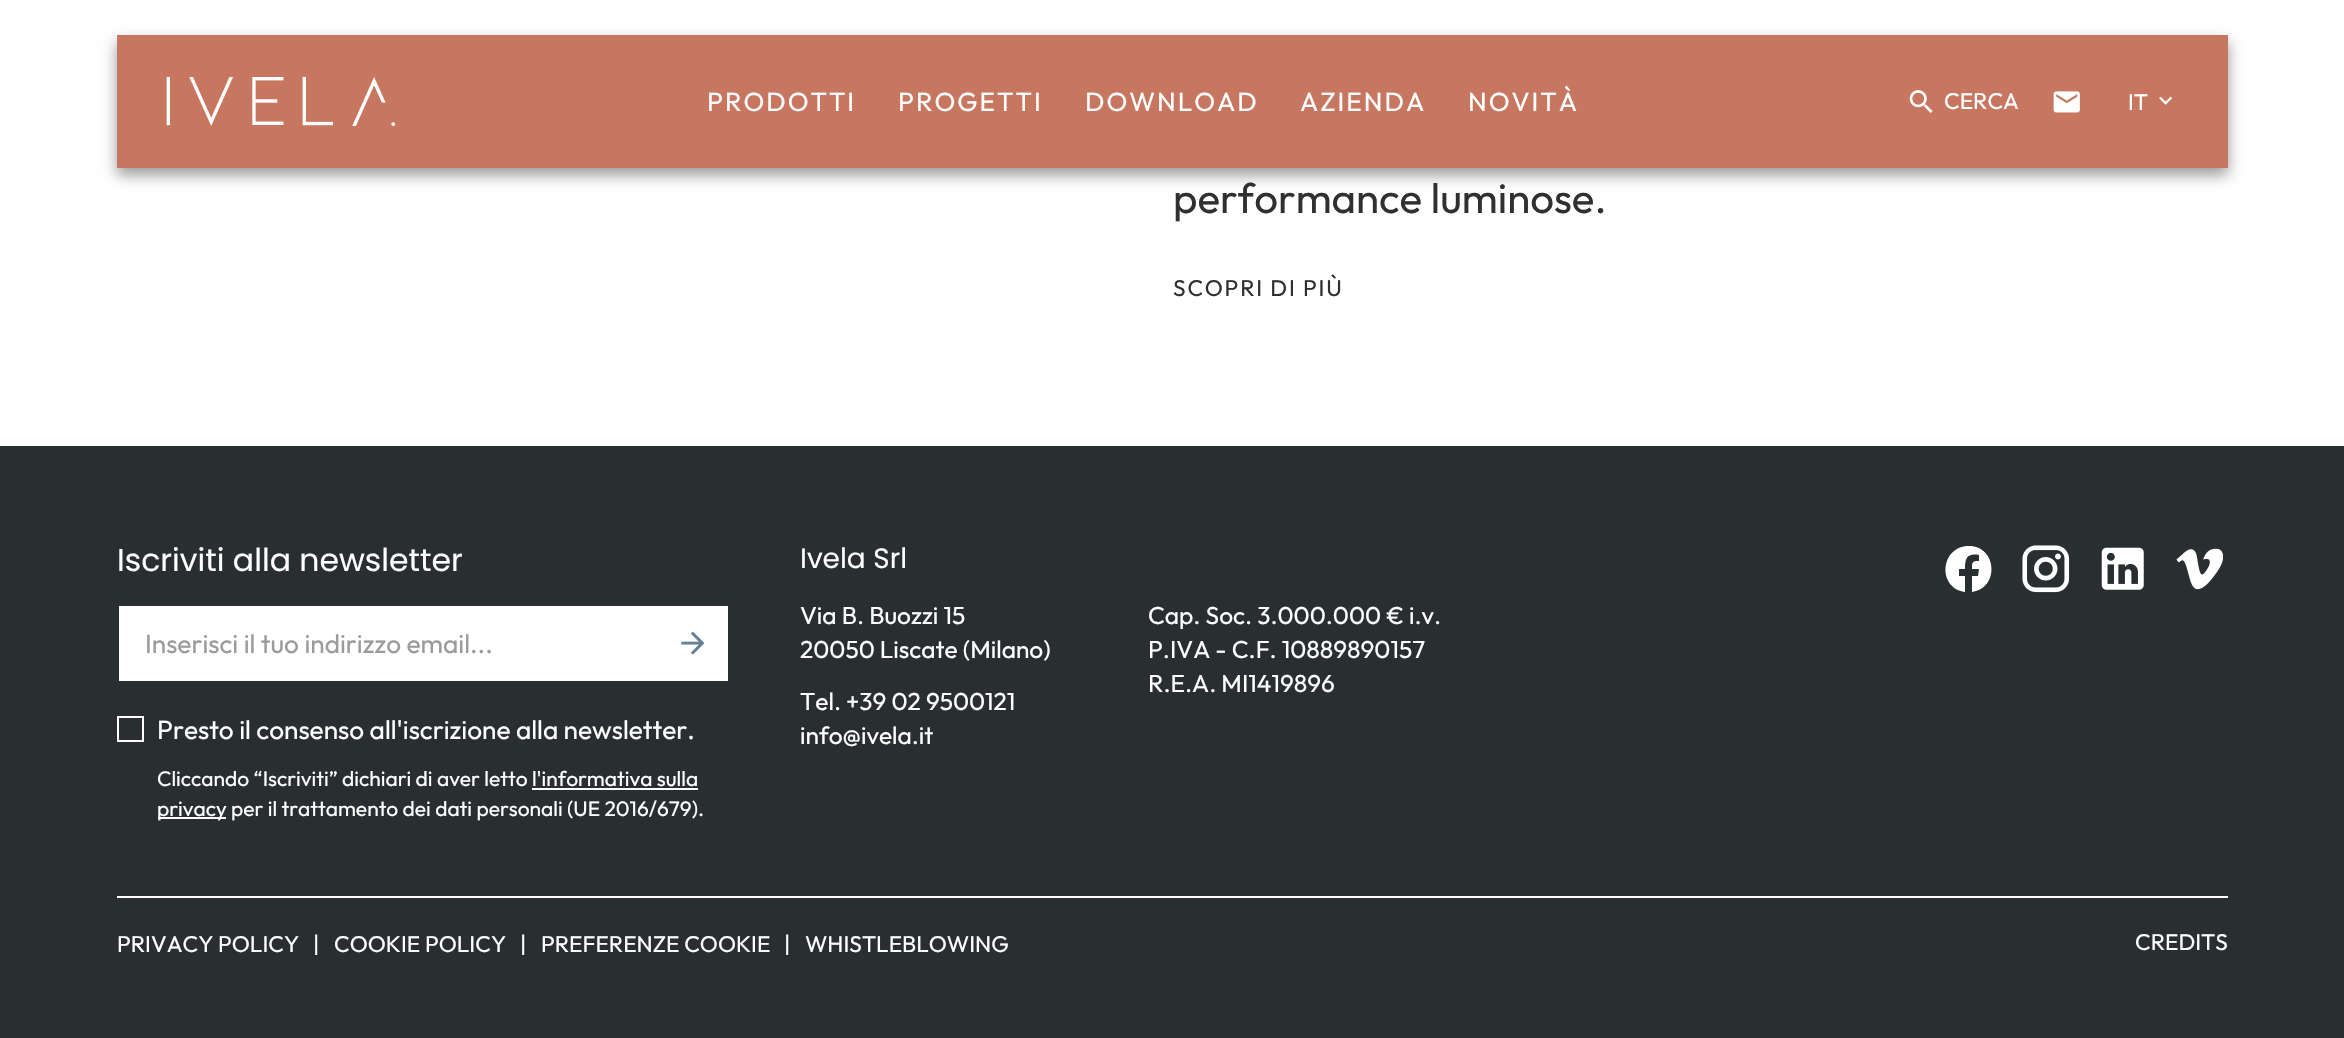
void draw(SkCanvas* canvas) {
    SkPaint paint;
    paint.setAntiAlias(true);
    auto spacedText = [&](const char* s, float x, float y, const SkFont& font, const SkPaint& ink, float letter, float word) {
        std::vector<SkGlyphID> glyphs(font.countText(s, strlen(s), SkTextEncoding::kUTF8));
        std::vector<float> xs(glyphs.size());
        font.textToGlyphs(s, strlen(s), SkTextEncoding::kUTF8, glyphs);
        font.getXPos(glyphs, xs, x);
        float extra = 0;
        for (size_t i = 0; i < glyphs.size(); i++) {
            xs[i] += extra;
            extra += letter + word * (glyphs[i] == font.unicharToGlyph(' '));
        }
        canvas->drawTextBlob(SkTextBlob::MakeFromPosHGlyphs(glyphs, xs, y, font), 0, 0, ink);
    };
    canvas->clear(0xFFFFFFFF);
    paint.setColor(0x66000000);
    paint.setMaskFilter(SkMaskFilter::MakeBlur(kNormal_SkBlurStyle, 7));
    canvas->drawRect(SkRect::MakeXYWH(117, 42, 2111, 133), paint);
    paint.setMaskFilter(nullptr);
    paint.setColor(0xFFC77760);
    canvas->drawRect(SkRect::MakeXYWH(117, 35, 2111, 133), paint);
    canvas->drawImageRect(SkImages::DeferredFromEncodedData(SkData::MakeFromFileName("img1.png")), SkRect::MakeXYWH(166, 77, 229, 49), SkSamplingOptions());
    SkFont font1(fontMgr->matchFamilyStyle("Outfit", SkFontStyle::Normal()), 26.25f);
    font1.setSubpixel(true);
    paint.setColor(0xFFFFFFFF);
    spacedText("PRODOTTI", 707, 111, font1, paint, 2, 0);
    spacedText("PROGETTI", 898, 111, font1, paint, 2, 0);
    spacedText("DOWNLOAD", 1085, 111, font1, paint, 2, 0);
    spacedText("AZIENDA", 1300, 111, font1, paint, 2, 0);
    spacedText("NOVITÀ", 1468, 111, font1, paint, 2, 0);
    canvas->drawImageRect(SkImages::DeferredFromEncodedData(SkData::MakeFromFileName("img2.png")), SkRect::MakeXYWH(1909, 90, 24, 23), SkSamplingOptions());
    SkFont font2(fontMgr->matchFamilyStyle("Outfit", SkFontStyle::Normal()), 22.75f);
    font2.setSubpixel(true);
    canvas->drawString("CERCA", 1944, 109, font2, paint);
    canvas->drawImageRect(SkImages::DeferredFromEncodedData(SkData::MakeFromFileName("img3.png")), SkRect::MakeXYWH(2053, 91, 27, 22), SkSamplingOptions());
    canvas->drawString("IT", 2128, 110, font2, paint);
    canvas->drawImageRect(SkImages::DeferredFromEncodedData(SkData::MakeFromFileName("img4.png")), SkRect::MakeXYWH(2159, 96, 14, 9), SkSamplingOptions());
    SkFont font3(fontMgr->matchFamilyStyle("Outfit", SkFontStyle::Normal()), 42);
    font3.setSubpixel(true);
    paint.setColor(0xFF303030);
    canvas->drawString("performance luminose.", 1173, 213, font3, paint);
    spacedText("SCOPRI DI PIÙ", 1173, 296, font2, paint, 1.75f, 0);
    paint.setColor(0xFF292F31);
    canvas->drawRect(SkRect::MakeXYWH(0, 446, 2344, 592), paint);
    SkFont font4(fontMgr->matchFamilyStyle("Poppins", SkFontStyle::Normal()), 31.5f);
    font4.setSubpixel(true);
    paint.setColor(0xFFFFFFFF);
    canvas->drawString("Iscriviti alla newsletter", 117, 571, font4, paint);
    canvas->drawRect(SkRect::MakeXYWH(119, 606, 609, 75), paint);
    paint.setColor(0xFF9B9B9B);
    canvas->drawString("Inserisci il tuo indirizzo email...", 145, 653, font1, paint);
    canvas->drawImageRect(SkImages::DeferredFromEncodedData(SkData::MakeFromFileName("img5.png")), SkRect::MakeXYWH(681, 631, 24, 24), SkSamplingOptions());
    paint.setStyle(SkPaint::kStroke_Style);
    paint.setStrokeWidth(2);
    paint.setColor(0xFFFFFFFF);
    canvas->drawRect(SkRect::MakeXYWH(118, 717, 25, 24), paint);
    paint.setStyle(SkPaint::kFill_Style);
    canvas->drawString("Presto il consenso all'iscrizione alla newsletter.", 157, 739, font1, paint);
    SkFont font5(fontMgr->matchFamilyStyle("Outfit", SkFontStyle::Normal()), 21);
    font5.setSubpixel(true);
    canvas->drawString("Cliccando “Iscriviti” dichiari di aver letto l'informativa sulla", 157, 786, font5, paint);
    canvas->drawRect(SkRect::MakeXYWH(158, 817, 68, 2), paint);
    canvas->drawString("privacy per il trattamento dei dati personali (UE 2016/679).", 157, 816, font5, paint);
    canvas->drawRect(SkRect::MakeXYWH(532, 788, 166, 2), paint);
    SkFont font6(fontMgr->matchFamilyStyle("Poppins", SkFontStyle::Normal()), 28);
    font6.setSubpixel(true);
    canvas->drawString("Ivela Srl", 800, 568, font6, paint);
    SkFont font7(fontMgr->matchFamilyStyle("Outfit", SkFontStyle::Normal()), 24.5f);
    font7.setSubpixel(true);
    canvas->drawString("Via B. Buozzi 15", 800, 624, font7, paint);
    canvas->drawString("20050 Liscate (Milano)", 800, 658, font7, paint);
    canvas->drawString("Tel. +39 02 9500121", 800, 710, font7, paint);
    canvas->drawString("info@ivela.it", 800, 744, font7, paint);
    canvas->drawString("Cap. Soc. 3.000.000 € i.v.", 1148, 624, font7, paint);
    canvas->drawString("P.IVA - C.F. 10889890157", 1148, 658, font7, paint);
    canvas->drawString("R.E.A. MI1419896", 1148, 692, font7, paint);
    canvas->drawPath(SkPathBuilder().moveTo(1969, 546).cubicTo(1940, 546, 1937, 588, 1965, 592).lineTo(1965, 576).lineTo(1959, 576).lineTo(1959, 569).lineTo(1965, 569).cubicTo(1965, 558, 1967, 553, 1979, 555).lineTo(1979, 561).cubicTo(1972, 561, 1972, 562, 1972, 569).lineTo(1979, 569).lineTo(1978, 576).lineTo(1972, 576).lineTo(1972, 592).cubicTo(2000, 588, 1997, 546, 1969, 546).close().detach(), paint);
    canvas->drawImageRect(SkImages::DeferredFromEncodedData(SkData::MakeFromFileName("img6.png")), SkRect::MakeXYWH(2022, 545, 48, 48), SkSamplingOptions());
    canvas->drawImageRect(SkImages::DeferredFromEncodedData(SkData::MakeFromFileName("img7.png")), SkRect::MakeXYWH(2101, 547, 43, 43), SkSamplingOptions());
    canvas->drawImageRect(SkImages::DeferredFromEncodedData(SkData::MakeFromFileName("img8.png")), SkRect::MakeXYWH(2176, 548, 48, 42), SkSamplingOptions());
    canvas->drawRect(SkRect::MakeXYWH(117, 896, 2111, 2), paint);
    canvas->drawString("PRIVACY POLICY", 117, 952, font2, paint);
    canvas->drawString("|", 313, 952, font2, paint);
    canvas->drawString("COOKIE POLICY", 334, 952, font2, paint);
    canvas->drawString("|", 520, 952, font2, paint);
    canvas->drawString("PREFERENZE COOKIE", 541, 952, font2, paint);
    canvas->drawString("|", 784, 952, font2, paint);
    canvas->drawString("WHISTLEBLOWING", 805, 952, font2, paint);
    canvas->drawString("CREDITS", 2135, 950, font2, paint);
}
